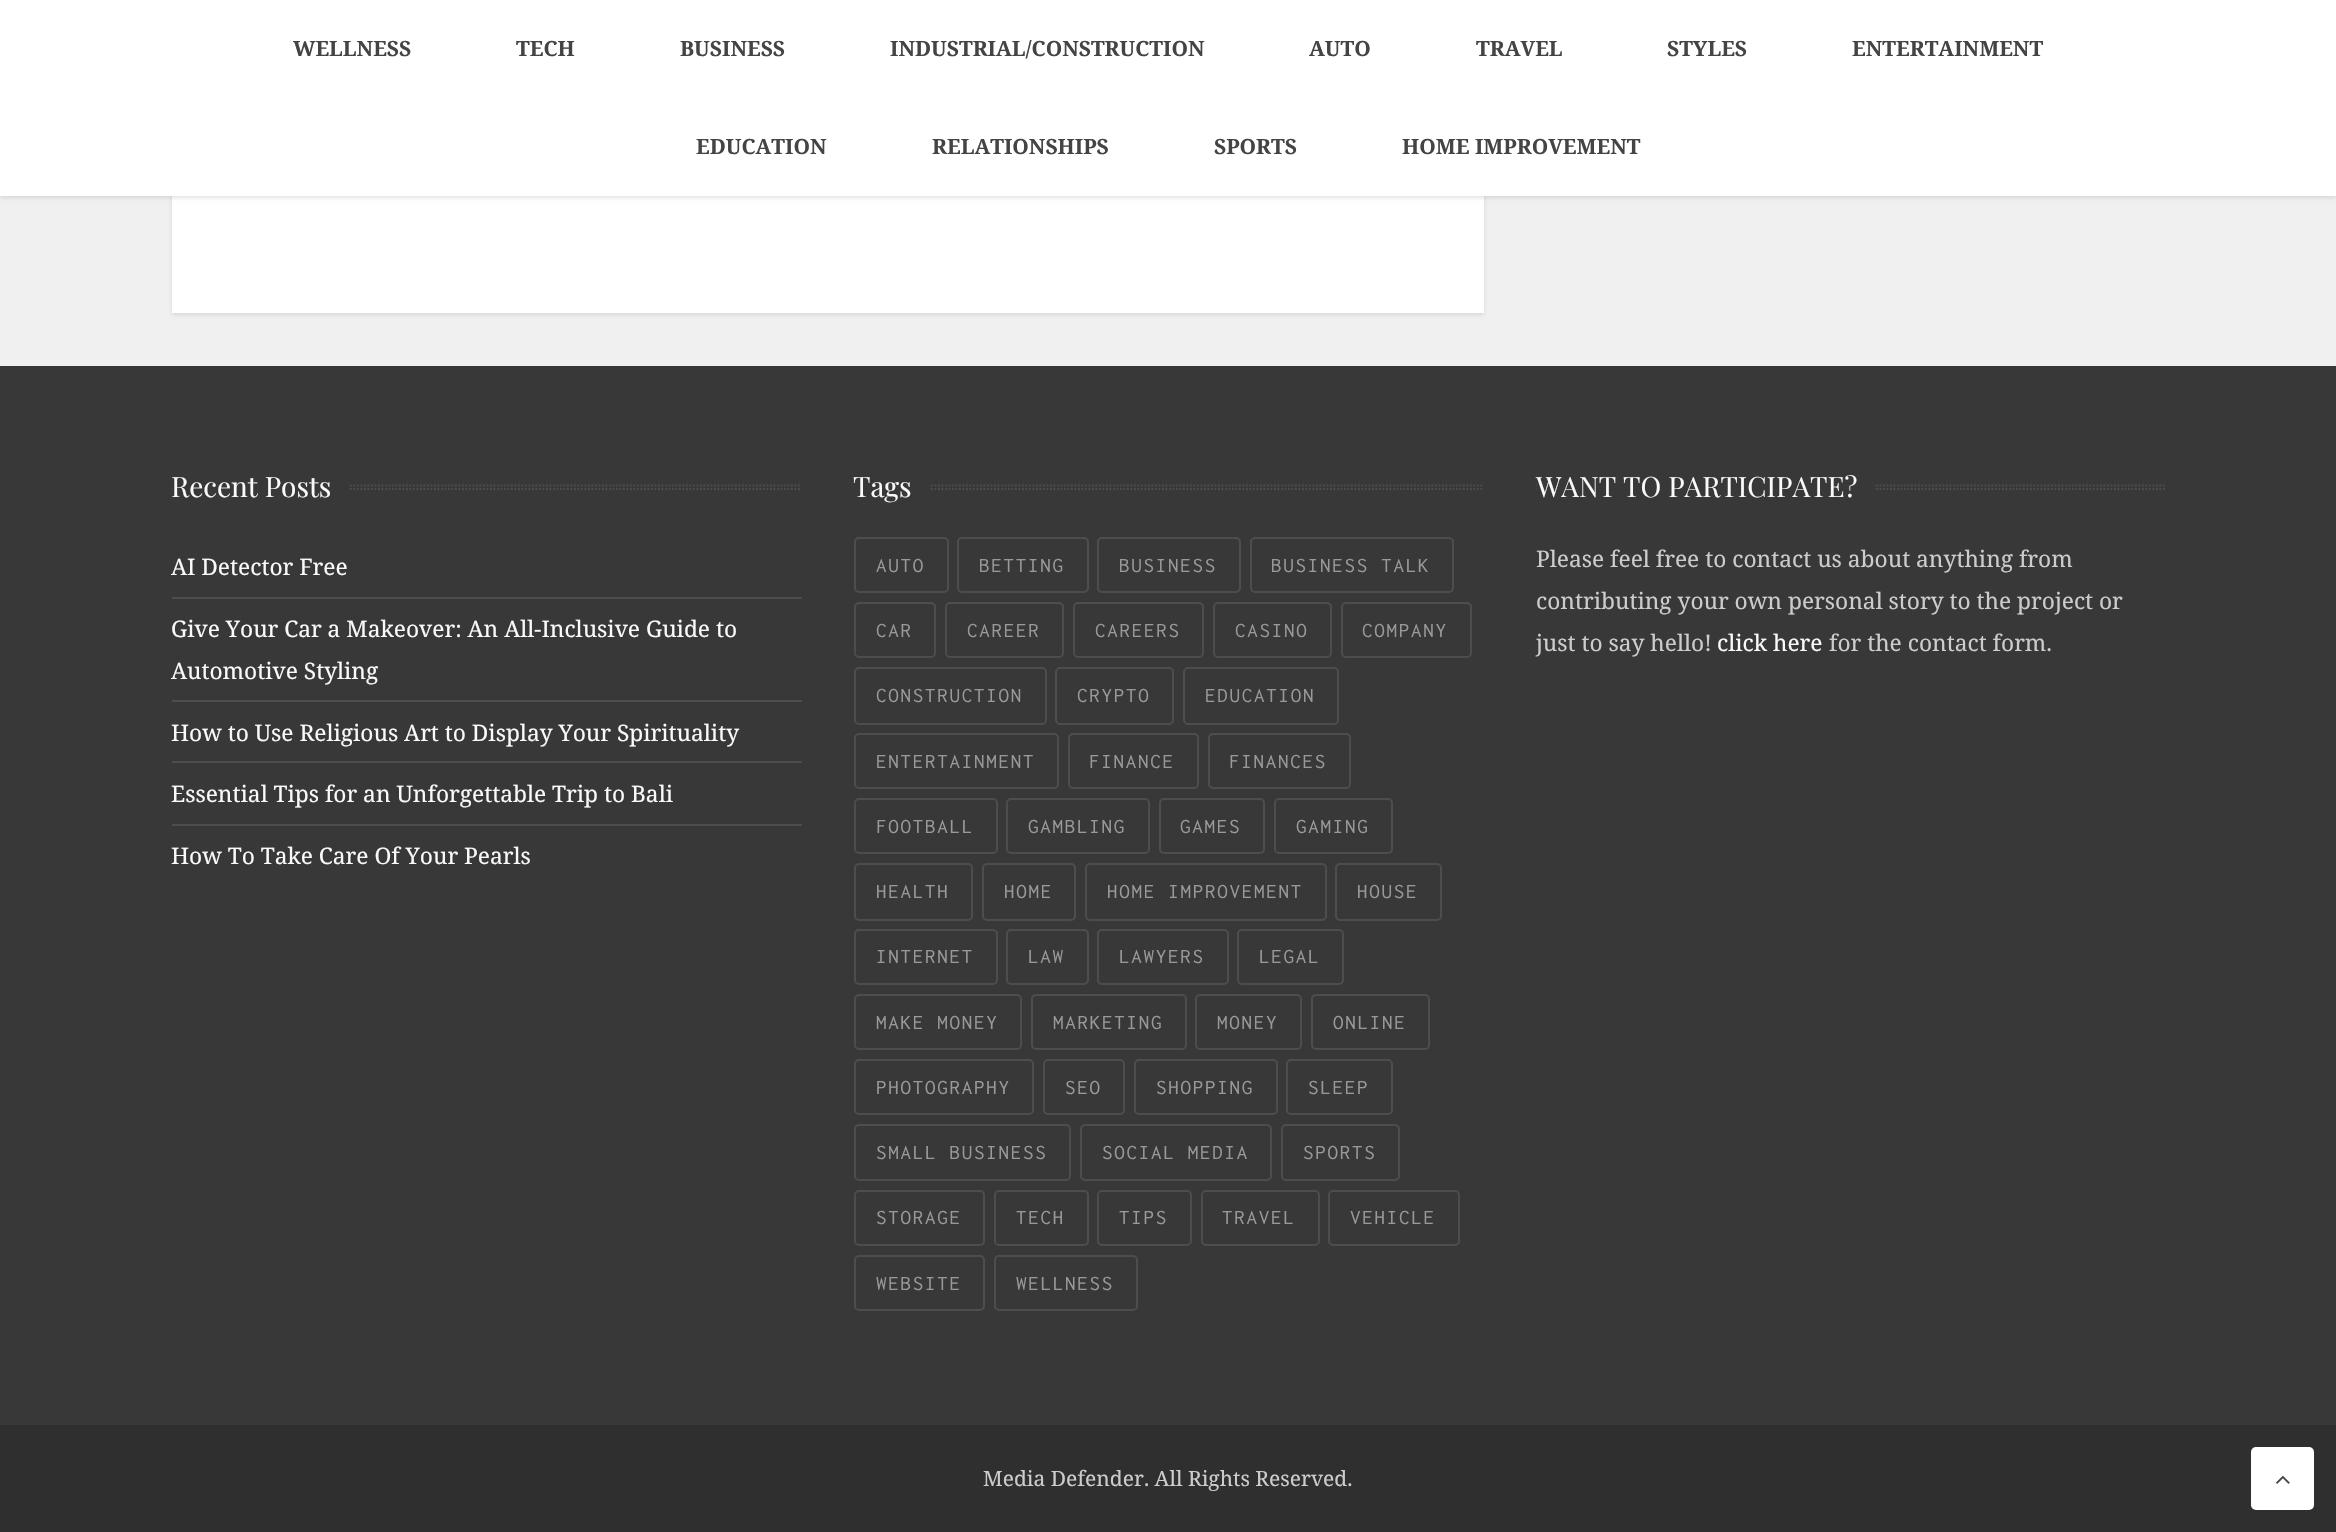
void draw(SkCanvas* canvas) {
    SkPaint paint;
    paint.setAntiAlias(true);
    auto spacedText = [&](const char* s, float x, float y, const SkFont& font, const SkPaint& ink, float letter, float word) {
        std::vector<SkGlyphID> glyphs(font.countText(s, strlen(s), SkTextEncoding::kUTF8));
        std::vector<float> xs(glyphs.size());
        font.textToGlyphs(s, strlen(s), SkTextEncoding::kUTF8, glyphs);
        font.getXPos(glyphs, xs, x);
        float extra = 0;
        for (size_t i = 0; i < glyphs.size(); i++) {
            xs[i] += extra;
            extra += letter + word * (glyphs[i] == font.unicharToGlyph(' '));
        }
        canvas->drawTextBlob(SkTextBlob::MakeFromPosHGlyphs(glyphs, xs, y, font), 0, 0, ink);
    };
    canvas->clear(0xFFF0F0F0);
    paint.setColor(0x1A000000);
    paint.setMaskFilter(SkMaskFilter::MakeBlur(kNormal_SkBlurStyle, 2));
    canvas->drawRect(SkRect::MakeXYWH(172, -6, 1312, 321), paint);
    paint.setMaskFilter(nullptr);
    paint.setColor(0xFFFFFFFF);
    canvas->drawRect(SkRect::MakeXYWH(172, 196, 1312, 117), paint);
    paint.setColor(0x1A000000);
    paint.setMaskFilter(SkMaskFilter::MakeBlur(kNormal_SkBlurStyle, 2));
    canvas->drawRect(SkRect::MakeXYWH(0, 2, 2336, 196), paint);
    paint.setMaskFilter(nullptr);
    paint.setColor(0xFFFFFFFF);
    canvas->drawRect(SkRect::MakeXYWH(0, 0, 2336, 196), paint);
    SkFont font1(fontMgr->matchFamilyStyle("Noto Serif", SkFontStyle::Bold()), 21);
    font1.setSubpixel(true);
    paint.setColor(0xFF444444);
    canvas->drawString("WELLNESS", 293, 56, font1, paint);
    canvas->drawString("TECH", 516, 56, font1, paint);
    canvas->drawString("BUSINESS", 680, 56, font1, paint);
    canvas->drawString("INDUSTRIAL/CONSTRUCTION", 890, 56, font1, paint);
    canvas->drawString("AUTO", 1309, 56, font1, paint);
    canvas->drawString("TRAVEL", 1476, 56, font1, paint);
    canvas->drawString("STYLES", 1667, 56, font1, paint);
    canvas->drawString("ENTERTAINMENT", 1852, 56, font1, paint);
    canvas->drawString("EDUCATION", 696, 154, font1, paint);
    canvas->drawString("RELATIONSHIPS", 932, 154, font1, paint);
    canvas->drawString("SPORTS", 1214, 154, font1, paint);
    canvas->drawString("HOME IMPROVEMENT", 1402, 154, font1, paint);
    paint.setColor(0xFF383838);
    canvas->drawRect(SkRect::MakeXYWH(0, 366, 2336, 1059), paint);
    paint.setStyle(SkPaint::kStroke_Style);
    paint.setStrokeWidth(1.8f);
    paint.setColor(0xFF4D4D4D);
    paint.setPathEffect(SkDashPathEffect::Make({{1.75f, 1.75f}}, 0));
    canvas->drawPath(SkPathBuilder().moveTo(171.5f, 485.5f).lineTo(801.5f, 485.5f).detach(), paint);
    paint.setPathEffect(nullptr);
    paint.setPathEffect(SkDashPathEffect::Make({{1.75f, 1.75f}}, 0));
    canvas->drawPath(SkPathBuilder().moveTo(171.5f, 489).lineTo(801.5f, 489).detach(), paint);
    paint.setPathEffect(nullptr);
    paint.setStyle(SkPaint::kFill_Style);
    paint.setColor(0xFF383838);
    canvas->drawRect(SkRect::MakeXYWH(172, 484, 176, 6), paint);
    SkFont font2(fontMgr->matchFamilyStyle("Playfair Display", SkFontStyle::Normal()), 28);
    font2.setSubpixel(true);
    paint.setColor(0xFFFAFAFA);
    canvas->drawString("Recent Posts", 171, 497, font2, paint);
    SkFont font3(fontMgr->matchFamilyStyle("Noto Serif", SkFontStyle::Normal()), 22.75f);
    font3.setSubpixel(true);
    canvas->drawString("AI Detector Free", 171, 575, font3, paint);
    paint.setColor(0xFF4D4D4D);
    canvas->drawRect(SkRect::MakeXYWH(172, 597, 630, 2), paint);
    paint.setColor(0xFFFAFAFA);
    canvas->drawString("Give Your Car a Makeover: An All-Inclusive Guide to", 171, 637, font3, paint);
    canvas->drawString("Automotive Styling", 171, 679, font3, paint);
    paint.setColor(0xFF4D4D4D);
    canvas->drawRect(SkRect::MakeXYWH(172, 700, 630, 2), paint);
    paint.setColor(0xFFFAFAFA);
    canvas->drawString("How to Use Religious Art to Display Your Spirituality", 171, 741, font3, paint);
    paint.setColor(0xFF4D4D4D);
    canvas->drawRect(SkRect::MakeXYWH(172, 761, 630, 2), paint);
    paint.setColor(0xFFFAFAFA);
    canvas->drawString("Essential Tips for an Unforgettable Trip to Bali", 171, 802, font3, paint);
    paint.setColor(0xFF4D4D4D);
    canvas->drawRect(SkRect::MakeXYWH(172, 824, 630, 2), paint);
    paint.setColor(0xFFFAFAFA);
    canvas->drawString("How To Take Care Of Your Pearls", 171, 864, font3, paint);
    paint.setStyle(SkPaint::kStroke_Style);
    paint.setColor(0xFF4D4D4D);
    paint.setPathEffect(SkDashPathEffect::Make({{1.75f, 1.75f}}, 0));
    canvas->drawPath(SkPathBuilder().moveTo(854, 485.5f).lineTo(1484, 485.5f).detach(), paint);
    paint.setPathEffect(nullptr);
    paint.setPathEffect(SkDashPathEffect::Make({{1.75f, 1.75f}}, 0));
    canvas->drawPath(SkPathBuilder().moveTo(854, 489).lineTo(1484, 489).detach(), paint);
    paint.setPathEffect(nullptr);
    paint.setStyle(SkPaint::kFill_Style);
    paint.setColor(0xFF383838);
    canvas->drawRect(SkRect::MakeXYWH(854, 484, 75, 6), paint);
    paint.setColor(0xFFFAFAFA);
    canvas->drawString("Tags", 853, 497, font2, paint);
    paint.setStyle(SkPaint::kStroke_Style);
    paint.setStrokeWidth(2);
    paint.setColor(0xFF4D4D4D);
    canvas->drawRoundRect(SkRect::MakeXYWH(855, 538, 93, 54), 4, 4, paint);
    SkFont font4(fontMgr->matchFamilyStyle("Inconsolata", SkFontStyle::Normal()), 21);
    font4.setSubpixel(true);
    paint.setStyle(SkPaint::kFill_Style);
    paint.setColor(0xFF999999);
    spacedText("AUTO", 876, 572, font4, paint, 1.75f, 0);
    paint.setStyle(SkPaint::kStroke_Style);
    paint.setColor(0xFF4D4D4D);
    canvas->drawRoundRect(SkRect::MakeXYWH(958, 538, 130, 54), 4, 4, paint);
    paint.setStyle(SkPaint::kFill_Style);
    paint.setColor(0xFF999999);
    spacedText("BETTING", 979, 572, font4, paint, 1.75f, 0);
    paint.setStyle(SkPaint::kStroke_Style);
    paint.setColor(0xFF4D4D4D);
    canvas->drawRoundRect(SkRect::MakeXYWH(1098, 538, 142, 54), 4, 4, paint);
    paint.setStyle(SkPaint::kFill_Style);
    paint.setColor(0xFF999999);
    spacedText("BUSINESS", 1119, 572, font4, paint, 1.75f, 0);
    paint.setStyle(SkPaint::kStroke_Style);
    paint.setColor(0xFF4D4D4D);
    canvas->drawRoundRect(SkRect::MakeXYWH(1251, 538, 202, 54), 4, 4, paint);
    paint.setStyle(SkPaint::kFill_Style);
    paint.setColor(0xFF999999);
    spacedText("BUSINESS TALK", 1271, 572, font4, paint, 1.75f, 0);
    paint.setStyle(SkPaint::kStroke_Style);
    paint.setColor(0xFF4D4D4D);
    canvas->drawRoundRect(SkRect::MakeXYWH(855, 603, 80, 54), 4, 4, paint);
    paint.setStyle(SkPaint::kFill_Style);
    paint.setColor(0xFF999999);
    spacedText("CAR", 876, 637, font4, paint, 1.75f, 0);
    paint.setStyle(SkPaint::kStroke_Style);
    paint.setColor(0xFF4D4D4D);
    canvas->drawRoundRect(SkRect::MakeXYWH(946, 603, 117, 54), 4, 4, paint);
    paint.setStyle(SkPaint::kFill_Style);
    paint.setColor(0xFF999999);
    spacedText("CAREER", 967, 637, font4, paint, 1.75f, 0);
    paint.setStyle(SkPaint::kStroke_Style);
    paint.setColor(0xFF4D4D4D);
    canvas->drawRoundRect(SkRect::MakeXYWH(1074, 603, 129, 54), 4, 4, paint);
    paint.setStyle(SkPaint::kFill_Style);
    paint.setColor(0xFF999999);
    spacedText("CAREERS", 1095, 637, font4, paint, 1.75f, 0);
    paint.setStyle(SkPaint::kStroke_Style);
    paint.setColor(0xFF4D4D4D);
    canvas->drawRoundRect(SkRect::MakeXYWH(1214, 603, 117, 54), 4, 4, paint);
    paint.setStyle(SkPaint::kFill_Style);
    paint.setColor(0xFF999999);
    spacedText("CASINO", 1235, 637, font4, paint, 1.75f, 0);
    paint.setStyle(SkPaint::kStroke_Style);
    paint.setColor(0xFF4D4D4D);
    canvas->drawRoundRect(SkRect::MakeXYWH(1342, 603, 129, 54), 4, 4, paint);
    paint.setStyle(SkPaint::kFill_Style);
    paint.setColor(0xFF999999);
    spacedText("COMPANY", 1362, 637, font4, paint, 1.75f, 0);
    paint.setStyle(SkPaint::kStroke_Style);
    paint.setColor(0xFF4D4D4D);
    canvas->drawRoundRect(SkRect::MakeXYWH(855, 668, 191, 56), 4, 4, paint);
    paint.setStyle(SkPaint::kFill_Style);
    paint.setColor(0xFF999999);
    spacedText("CONSTRUCTION", 876, 702, font4, paint, 1.75f, 0);
    paint.setStyle(SkPaint::kStroke_Style);
    paint.setColor(0xFF4D4D4D);
    canvas->drawRoundRect(SkRect::MakeXYWH(1056, 668, 117, 56), 4, 4, paint);
    paint.setStyle(SkPaint::kFill_Style);
    paint.setColor(0xFF999999);
    spacedText("CRYPTO", 1077, 702, font4, paint, 1.75f, 0);
    paint.setStyle(SkPaint::kStroke_Style);
    paint.setColor(0xFF4D4D4D);
    canvas->drawRoundRect(SkRect::MakeXYWH(1184, 668, 154, 56), 4, 4, paint);
    paint.setStyle(SkPaint::kFill_Style);
    paint.setColor(0xFF999999);
    spacedText("EDUCATION", 1205, 702, font4, paint, 1.75f, 0);
    paint.setStyle(SkPaint::kStroke_Style);
    paint.setColor(0xFF4D4D4D);
    canvas->drawRoundRect(SkRect::MakeXYWH(855, 734, 203, 54), 4, 4, paint);
    paint.setStyle(SkPaint::kFill_Style);
    paint.setColor(0xFF999999);
    spacedText("ENTERTAINMENT", 876, 768, font4, paint, 1.75f, 0);
    paint.setStyle(SkPaint::kStroke_Style);
    paint.setColor(0xFF4D4D4D);
    canvas->drawRoundRect(SkRect::MakeXYWH(1069, 734, 129, 54), 4, 4, paint);
    paint.setStyle(SkPaint::kFill_Style);
    paint.setColor(0xFF999999);
    spacedText("FINANCE", 1089, 768, font4, paint, 1.75f, 0);
    paint.setStyle(SkPaint::kStroke_Style);
    paint.setColor(0xFF4D4D4D);
    canvas->drawRoundRect(SkRect::MakeXYWH(1209, 734, 141, 54), 4, 4, paint);
    paint.setStyle(SkPaint::kFill_Style);
    paint.setColor(0xFF999999);
    spacedText("FINANCES", 1229, 768, font4, paint, 1.75f, 0);
    paint.setStyle(SkPaint::kStroke_Style);
    paint.setColor(0xFF4D4D4D);
    canvas->drawRoundRect(SkRect::MakeXYWH(855, 799, 142, 54), 4, 4, paint);
    paint.setStyle(SkPaint::kFill_Style);
    paint.setColor(0xFF999999);
    spacedText("FOOTBALL", 876, 833, font4, paint, 1.75f, 0);
    paint.setStyle(SkPaint::kStroke_Style);
    paint.setColor(0xFF4D4D4D);
    canvas->drawRoundRect(SkRect::MakeXYWH(1007, 799, 142, 54), 4, 4, paint);
    paint.setStyle(SkPaint::kFill_Style);
    paint.setColor(0xFF999999);
    spacedText("GAMBLING", 1028, 833, font4, paint, 1.75f, 0);
    paint.setStyle(SkPaint::kStroke_Style);
    paint.setColor(0xFF4D4D4D);
    canvas->drawRoundRect(SkRect::MakeXYWH(1160, 799, 104, 54), 4, 4, paint);
    paint.setStyle(SkPaint::kFill_Style);
    paint.setColor(0xFF999999);
    spacedText("GAMES", 1180, 833, font4, paint, 1.75f, 0);
    paint.setStyle(SkPaint::kStroke_Style);
    paint.setColor(0xFF4D4D4D);
    canvas->drawRoundRect(SkRect::MakeXYWH(1275, 799, 117, 54), 4, 4, paint);
    paint.setStyle(SkPaint::kFill_Style);
    paint.setColor(0xFF999999);
    spacedText("GAMING", 1296, 833, font4, paint, 1.75f, 0);
    paint.setStyle(SkPaint::kStroke_Style);
    paint.setColor(0xFF4D4D4D);
    canvas->drawRoundRect(SkRect::MakeXYWH(855, 864, 117, 56), 4, 4, paint);
    paint.setStyle(SkPaint::kFill_Style);
    paint.setColor(0xFF999999);
    spacedText("HEALTH", 876, 898, font4, paint, 1.75f, 0);
    paint.setStyle(SkPaint::kStroke_Style);
    paint.setColor(0xFF4D4D4D);
    canvas->drawRoundRect(SkRect::MakeXYWH(983, 864, 92, 56), 4, 4, paint);
    paint.setStyle(SkPaint::kFill_Style);
    paint.setColor(0xFF999999);
    spacedText("HOME", 1004, 898, font4, paint, 1.75f, 0);
    paint.setStyle(SkPaint::kStroke_Style);
    paint.setColor(0xFF4D4D4D);
    canvas->drawRoundRect(SkRect::MakeXYWH(1086, 864, 240, 56), 4, 4, paint);
    paint.setStyle(SkPaint::kFill_Style);
    paint.setColor(0xFF999999);
    spacedText("HOME IMPROVEMENT", 1107, 898, font4, paint, 1.75f, 0);
    paint.setStyle(SkPaint::kStroke_Style);
    paint.setColor(0xFF4D4D4D);
    canvas->drawRoundRect(SkRect::MakeXYWH(1336, 864, 105, 56), 4, 4, paint);
    paint.setStyle(SkPaint::kFill_Style);
    paint.setColor(0xFF999999);
    spacedText("HOUSE", 1357, 898, font4, paint, 1.75f, 0);
    paint.setStyle(SkPaint::kStroke_Style);
    paint.setColor(0xFF4D4D4D);
    canvas->drawRoundRect(SkRect::MakeXYWH(855, 930, 142, 54), 4, 4, paint);
    paint.setStyle(SkPaint::kFill_Style);
    paint.setColor(0xFF999999);
    spacedText("INTERNET", 876, 963, font4, paint, 1.75f, 0);
    paint.setStyle(SkPaint::kStroke_Style);
    paint.setColor(0xFF4D4D4D);
    canvas->drawRoundRect(SkRect::MakeXYWH(1007, 930, 81, 54), 4, 4, paint);
    paint.setStyle(SkPaint::kFill_Style);
    paint.setColor(0xFF999999);
    spacedText("LAW", 1028, 963, font4, paint, 1.75f, 0);
    paint.setStyle(SkPaint::kStroke_Style);
    paint.setColor(0xFF4D4D4D);
    canvas->drawRoundRect(SkRect::MakeXYWH(1098, 930, 130, 54), 4, 4, paint);
    paint.setStyle(SkPaint::kFill_Style);
    paint.setColor(0xFF999999);
    spacedText("LAWYERS", 1119, 963, font4, paint, 1.75f, 0);
    paint.setStyle(SkPaint::kStroke_Style);
    paint.setColor(0xFF4D4D4D);
    canvas->drawRoundRect(SkRect::MakeXYWH(1238, 930, 105, 54), 4, 4, paint);
    paint.setStyle(SkPaint::kFill_Style);
    paint.setColor(0xFF999999);
    spacedText("LEGAL", 1259, 963, font4, paint, 1.75f, 0);
    paint.setStyle(SkPaint::kStroke_Style);
    paint.setColor(0xFF4D4D4D);
    canvas->drawRoundRect(SkRect::MakeXYWH(855, 995, 166, 54), 4, 4, paint);
    paint.setStyle(SkPaint::kFill_Style);
    paint.setColor(0xFF999999);
    spacedText("MAKE MONEY", 876, 1029, font4, paint, 1.75f, 0);
    paint.setStyle(SkPaint::kStroke_Style);
    paint.setColor(0xFF4D4D4D);
    canvas->drawRoundRect(SkRect::MakeXYWH(1032, 995, 154, 54), 4, 4, paint);
    paint.setStyle(SkPaint::kFill_Style);
    paint.setColor(0xFF999999);
    spacedText("MARKETING", 1053, 1029, font4, paint, 1.75f, 0);
    paint.setStyle(SkPaint::kStroke_Style);
    paint.setColor(0xFF4D4D4D);
    canvas->drawRoundRect(SkRect::MakeXYWH(1196, 995, 105, 54), 4, 4, paint);
    paint.setStyle(SkPaint::kFill_Style);
    paint.setColor(0xFF999999);
    spacedText("MONEY", 1217, 1029, font4, paint, 1.75f, 0);
    paint.setStyle(SkPaint::kStroke_Style);
    paint.setColor(0xFF4D4D4D);
    canvas->drawRoundRect(SkRect::MakeXYWH(1312, 995, 117, 54), 4, 4, paint);
    paint.setStyle(SkPaint::kFill_Style);
    paint.setColor(0xFF999999);
    spacedText("ONLINE", 1333, 1029, font4, paint, 1.75f, 0);
    paint.setStyle(SkPaint::kStroke_Style);
    paint.setColor(0xFF4D4D4D);
    canvas->drawRoundRect(SkRect::MakeXYWH(855, 1060, 178, 54), 4, 4, paint);
    paint.setStyle(SkPaint::kFill_Style);
    paint.setColor(0xFF999999);
    spacedText("PHOTOGRAPHY", 876, 1094, font4, paint, 1.75f, 0);
    paint.setStyle(SkPaint::kStroke_Style);
    paint.setColor(0xFF4D4D4D);
    canvas->drawRoundRect(SkRect::MakeXYWH(1044, 1060, 80, 54), 4, 4, paint);
    paint.setStyle(SkPaint::kFill_Style);
    paint.setColor(0xFF999999);
    spacedText("SEO", 1065, 1094, font4, paint, 1.75f, 0);
    paint.setStyle(SkPaint::kStroke_Style);
    paint.setColor(0xFF4D4D4D);
    canvas->drawRoundRect(SkRect::MakeXYWH(1135, 1060, 142, 54), 4, 4, paint);
    paint.setStyle(SkPaint::kFill_Style);
    paint.setColor(0xFF999999);
    spacedText("SHOPPING", 1156, 1094, font4, paint, 1.75f, 0);
    paint.setStyle(SkPaint::kStroke_Style);
    paint.setColor(0xFF4D4D4D);
    canvas->drawRoundRect(SkRect::MakeXYWH(1287, 1060, 105, 54), 4, 4, paint);
    paint.setStyle(SkPaint::kFill_Style);
    paint.setColor(0xFF999999);
    spacedText("SLEEP", 1308, 1094, font4, paint, 1.75f, 0);
    paint.setStyle(SkPaint::kStroke_Style);
    paint.setColor(0xFF4D4D4D);
    canvas->drawRoundRect(SkRect::MakeXYWH(855, 1125, 215, 55), 4, 4, paint);
    paint.setStyle(SkPaint::kFill_Style);
    paint.setColor(0xFF999999);
    spacedText("SMALL BUSINESS", 876, 1159, font4, paint, 1.75f, 0);
    paint.setStyle(SkPaint::kStroke_Style);
    paint.setColor(0xFF4D4D4D);
    canvas->drawRoundRect(SkRect::MakeXYWH(1081, 1125, 190, 55), 4, 4, paint);
    paint.setStyle(SkPaint::kFill_Style);
    paint.setColor(0xFF999999);
    spacedText("SOCIAL MEDIA", 1102, 1159, font4, paint, 1.75f, 0);
    paint.setStyle(SkPaint::kStroke_Style);
    paint.setColor(0xFF4D4D4D);
    canvas->drawRoundRect(SkRect::MakeXYWH(1282, 1125, 117, 55), 4, 4, paint);
    paint.setStyle(SkPaint::kFill_Style);
    paint.setColor(0xFF999999);
    spacedText("SPORTS", 1303, 1159, font4, paint, 1.75f, 0);
    paint.setStyle(SkPaint::kStroke_Style);
    paint.setColor(0xFF4D4D4D);
    canvas->drawRoundRect(SkRect::MakeXYWH(855, 1191, 129, 54), 4, 4, paint);
    paint.setStyle(SkPaint::kFill_Style);
    paint.setColor(0xFF999999);
    spacedText("STORAGE", 876, 1224, font4, paint, 1.75f, 0);
    paint.setStyle(SkPaint::kStroke_Style);
    paint.setColor(0xFF4D4D4D);
    canvas->drawRoundRect(SkRect::MakeXYWH(995, 1191, 93, 54), 4, 4, paint);
    paint.setStyle(SkPaint::kFill_Style);
    paint.setColor(0xFF999999);
    spacedText("TECH", 1016, 1224, font4, paint, 1.75f, 0);
    paint.setStyle(SkPaint::kStroke_Style);
    paint.setColor(0xFF4D4D4D);
    canvas->drawRoundRect(SkRect::MakeXYWH(1098, 1191, 93, 54), 4, 4, paint);
    paint.setStyle(SkPaint::kFill_Style);
    paint.setColor(0xFF999999);
    spacedText("TIPS", 1119, 1224, font4, paint, 1.75f, 0);
    paint.setStyle(SkPaint::kStroke_Style);
    paint.setColor(0xFF4D4D4D);
    canvas->drawRoundRect(SkRect::MakeXYWH(1202, 1191, 117, 54), 4, 4, paint);
    paint.setStyle(SkPaint::kFill_Style);
    paint.setColor(0xFF999999);
    spacedText("TRAVEL", 1222, 1224, font4, paint, 1.75f, 0);
    paint.setStyle(SkPaint::kStroke_Style);
    paint.setColor(0xFF4D4D4D);
    canvas->drawRoundRect(SkRect::MakeXYWH(1329, 1191, 130, 54), 4, 4, paint);
    paint.setStyle(SkPaint::kFill_Style);
    paint.setColor(0xFF999999);
    spacedText("VEHICLE", 1350, 1224, font4, paint, 1.75f, 0);
    paint.setStyle(SkPaint::kStroke_Style);
    paint.setColor(0xFF4D4D4D);
    canvas->drawRoundRect(SkRect::MakeXYWH(855, 1256, 129, 54), 4, 4, paint);
    paint.setStyle(SkPaint::kFill_Style);
    paint.setColor(0xFF999999);
    spacedText("WEBSITE", 876, 1290, font4, paint, 1.75f, 0);
    paint.setStyle(SkPaint::kStroke_Style);
    paint.setColor(0xFF4D4D4D);
    canvas->drawRoundRect(SkRect::MakeXYWH(995, 1256, 142, 54), 4, 4, paint);
    paint.setStyle(SkPaint::kFill_Style);
    paint.setColor(0xFF999999);
    spacedText("WELLNESS", 1016, 1290, font4, paint, 1.75f, 0);
    paint.setStyle(SkPaint::kStroke_Style);
    paint.setStrokeWidth(1.8f);
    paint.setColor(0xFF4D4D4D);
    paint.setPathEffect(SkDashPathEffect::Make({{1.75f, 1.75f}}, 0));
    canvas->drawPath(SkPathBuilder().moveTo(1536.5f, 485.5f).lineTo(2166.5f, 485.5f).detach(), paint);
    paint.setPathEffect(nullptr);
    paint.setPathEffect(SkDashPathEffect::Make({{1.75f, 1.75f}}, 0));
    canvas->drawPath(SkPathBuilder().moveTo(1536.5f, 489).lineTo(2166.5f, 489).detach(), paint);
    paint.setPathEffect(nullptr);
    paint.setStyle(SkPaint::kFill_Style);
    paint.setColor(0xFF383838);
    canvas->drawRect(SkRect::MakeXYWH(1537, 484, 337, 6), paint);
    paint.setColor(0xFFFAFAFA);
    canvas->drawString("WANT TO PARTICIPATE?", 1536, 497, font2, paint);
    paint.setColor(0xFFCCCCCC);
    canvas->drawString("Please feel free to contact us about anything from", 1536, 567, font3, paint);
    canvas->drawString("contributing your own personal story to the project or", 1536, 609, font3, paint);
    canvas->drawString("just to say hello!", 1536, 651, font3, paint);
    paint.setColor(0xFFFAFAFA);
    canvas->drawString("click here", 1717, 651, font3, paint);
    paint.setColor(0xFFCCCCCC);
    canvas->drawString("for the contact form.", 1829, 651, font3, paint);
    paint.setColor(0xFF2F2F2F);
    canvas->drawRect(SkRect::MakeXYWH(0, 1425, 2336, 107), paint);
    SkFont font5(fontMgr->matchFamilyStyle("Noto Serif", SkFontStyle::Normal()), 21);
    font5.setSubpixel(true);
    paint.setColor(0xFFCCCCCC);
    canvas->drawString("Media Defender. All Rights Reserved.", 983, 1486, font5, paint);
    paint.setColor(0xFFFFFFFF);
    canvas->drawRoundRect(SkRect::MakeXYWH(2251, 1447, 63, 63), 5, 5, paint);
    canvas->drawImageRect(SkImages::DeferredFromEncodedData(SkData::MakeFromFileName("img1.png")), SkRect::MakeXYWH(2276, 1475, 14, 9), SkSamplingOptions());
}
